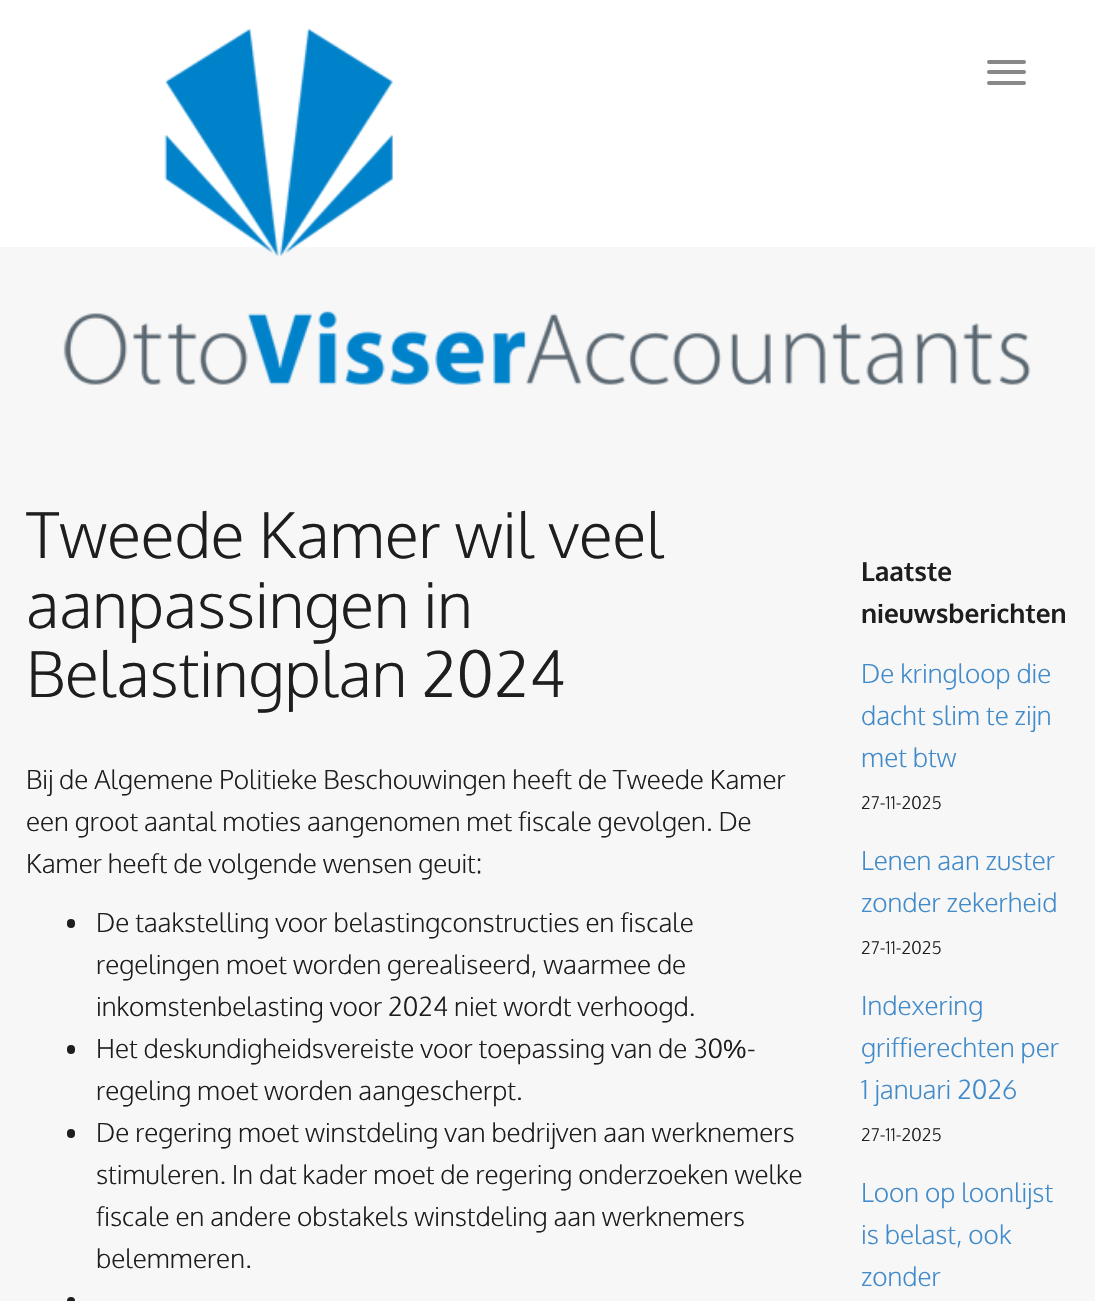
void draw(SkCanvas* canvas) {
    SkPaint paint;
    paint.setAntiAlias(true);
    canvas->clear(0xFFF7F7F7);
    paint.setColor(0xFFFFFFFF);
    canvas->drawRect(SkRect::MakeXYWH(0, 0, 1095, 247), paint);
    canvas->drawImageRect(SkImages::DeferredFromEncodedData(SkData::MakeFromFileName("img1.png")), SkRect::MakeXYWH(63, 28, 968, 357), SkSamplingOptions());
    paint.setColor(0xFF888888);
    canvas->drawRoundRect(SkRect::MakeXYWH(987, 60, 39, 4), 2, 2, paint);
    canvas->drawRoundRect(SkRect::MakeXYWH(987, 70, 39, 4), 2, 2, paint);
    canvas->drawRoundRect(SkRect::MakeXYWH(987, 81, 39, 4), 2, 2, paint);
    SkFont font1(fontMgr->matchFamilyStyle("Oxygen", SkFontStyle(300, SkFontStyle::kNormal_Width, SkFontStyle::kUpright_Slant)), 63);
    font1.setSubpixel(true);
    paint.setColor(0xFF1E1E1E);
    canvas->drawString("Tweede Kamer wil veel", 26, 558, font1, paint);
    canvas->drawString("aanpassingen in", 26, 628, font1, paint);
    canvas->drawString("Belastingplan 2024", 26, 697, font1, paint);
    SkFont font2(fontMgr->matchFamilyStyle("Oxygen", SkFontStyle(300, SkFontStyle::kNormal_Width, SkFontStyle::kUpright_Slant)), 26.25f);
    font2.setSubpixel(true);
    canvas->drawString("Bij de Algemene Politieke Beschouwingen heeft de Tweede Kamer", 26, 789, font2, paint);
    canvas->drawString("een groot aantal moties aangenomen met fiscale gevolgen. De", 26, 831, font2, paint);
    canvas->drawString("Kamer heeft de volgende wensen geuit:", 26, 873, font2, paint);
    canvas->drawRoundRect(SkRect::MakeXYWH(67, 919, 8, 9), 4, 4, paint);
    canvas->drawString("De taakstelling voor belastingconstructies en fiscale", 96, 932, font2, paint);
    canvas->drawString("regelingen moet worden gerealiseerd, waarmee de", 96, 974, font2, paint);
    canvas->drawString("inkomstenbelasting voor 2024 niet wordt verhoogd.", 96, 1016, font2, paint);
    canvas->drawRoundRect(SkRect::MakeXYWH(67, 1045, 8, 9), 4, 4, paint);
    canvas->drawString("Het deskundigheidsvereiste voor toepassing van de 30", 96, 1058, font2, paint);
    SkFont font3(fontMgr->matchFamilyStyle("Liberation Sans", SkFontStyle::Normal()), 26.25f);
    font3.setSubpixel(true);
    canvas->drawString("%", 723, 1058, font3, paint);
    canvas->drawString("-", 747, 1058, font2, paint);
    canvas->drawString("regeling moet worden aangescherpt.", 96, 1100, font2, paint);
    canvas->drawRoundRect(SkRect::MakeXYWH(67, 1129, 8, 9), 4, 4, paint);
    canvas->drawString("De regering moet winstdeling van bedrijven aan werknemers", 96, 1142, font2, paint);
    canvas->drawString("stimuleren. In dat kader moet de regering onderzoeken welke", 96, 1184, font2, paint);
    canvas->drawString("fiscale en andere obstakels winstdeling aan werknemers", 96, 1226, font2, paint);
    canvas->drawString("belemmeren.", 96, 1268, font2, paint);
    canvas->drawCircle(71, 1301, 4, paint);
    SkFont font4(fontMgr->matchFamilyStyle("Oxygen", SkFontStyle::Bold()), 26.25f);
    font4.setSubpixel(true);
    canvas->drawString("Laatste", 861, 581, font4, paint);
    canvas->drawString("nieuwsberichten", 861, 623, font4, paint);
    paint.setColor(0xFF428BCA);
    canvas->drawString("De kringloop die", 861, 683, font2, paint);
    canvas->drawString("dacht slim te zijn", 861, 725, font2, paint);
    canvas->drawString("met btw", 861, 767, font2, paint);
    SkFont font5(fontMgr->matchFamilyStyle("Oxygen", SkFontStyle(300, SkFontStyle::kNormal_Width, SkFontStyle::kUpright_Slant)), 17.5f);
    font5.setSubpixel(true);
    paint.setColor(0xFF1E1E1E);
    canvas->drawString("27-11-2025", 861, 809, font5, paint);
    paint.setColor(0xFF428BCA);
    canvas->drawString("Lenen aan zuster", 861, 870, font2, paint);
    canvas->drawString("zonder zekerheid", 861, 912, font2, paint);
    paint.setColor(0xFF1E1E1E);
    canvas->drawString("27-11-2025", 861, 954, font5, paint);
    paint.setColor(0xFF428BCA);
    canvas->drawString("Indexering", 861, 1015, font2, paint);
    canvas->drawString("griffierechten per", 861, 1057, font2, paint);
    canvas->drawString("1 januari 2026", 861, 1099, font2, paint);
    paint.setColor(0xFF1E1E1E);
    canvas->drawString("27-11-2025", 861, 1141, font5, paint);
    paint.setColor(0xFF428BCA);
    canvas->drawString("Loon op loonlijst", 861, 1202, font2, paint);
    canvas->drawString("is belast, ook", 861, 1244, font2, paint);
    canvas->drawString("zonder", 861, 1286, font2, paint);
}
